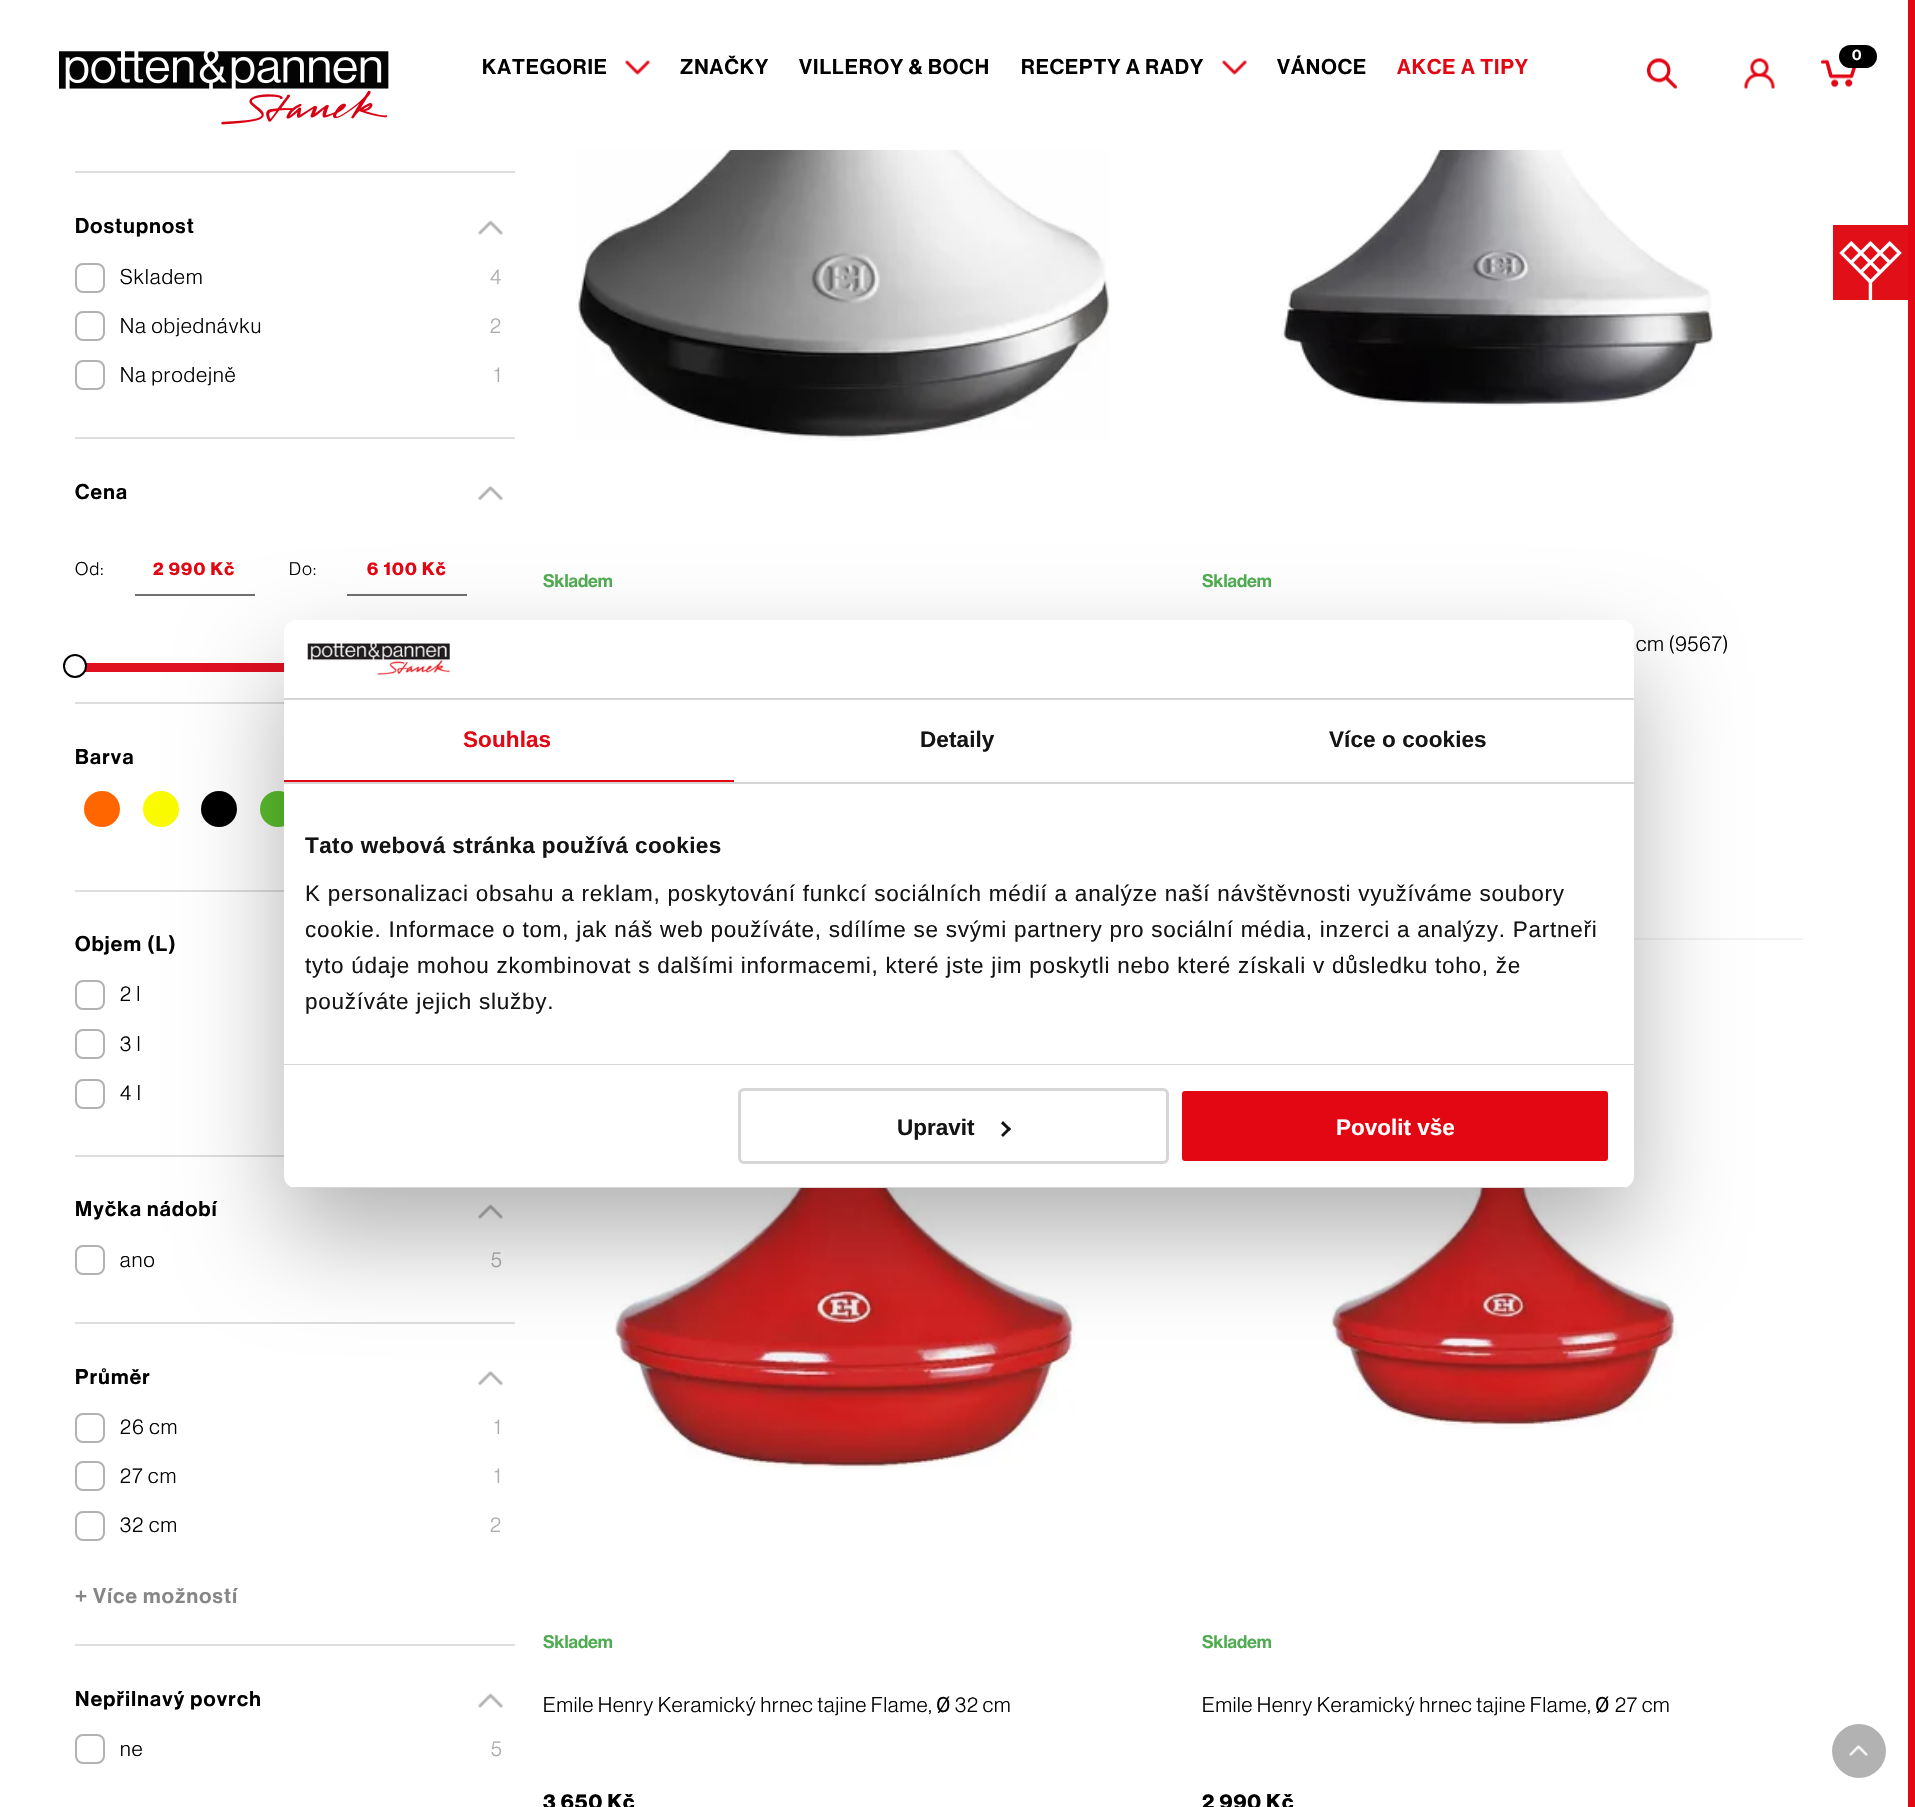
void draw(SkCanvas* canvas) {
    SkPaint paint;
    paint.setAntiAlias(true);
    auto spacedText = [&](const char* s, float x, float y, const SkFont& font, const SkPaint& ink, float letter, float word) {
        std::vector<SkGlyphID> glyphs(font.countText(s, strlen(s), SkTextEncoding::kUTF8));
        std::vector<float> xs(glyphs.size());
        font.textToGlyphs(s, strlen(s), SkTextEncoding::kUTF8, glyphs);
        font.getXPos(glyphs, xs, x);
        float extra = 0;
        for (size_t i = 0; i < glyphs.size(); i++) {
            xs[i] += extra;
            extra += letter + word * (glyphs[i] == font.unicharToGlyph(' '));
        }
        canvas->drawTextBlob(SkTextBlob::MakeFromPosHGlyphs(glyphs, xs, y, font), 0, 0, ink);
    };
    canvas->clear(0xFFFFFFFF);
    canvas->drawImageRect(SkImages::DeferredFromEncodedData(SkData::MakeFromFileName("img1.png")), SkRect::MakeXYWH(59, 51, 330, 74), SkSamplingOptions());
    SkFont font1(fontMgr->matchFamilyStyle("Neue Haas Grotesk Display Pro", SkFontStyle(500, SkFontStyle::kNormal_Width, SkFontStyle::kUpright_Slant)), 21);
    font1.setSubpixel(true);
    paint.setColor(0xFF000000);
    spacedText("KATEGORIE", 482, 74, font1, paint, 1, 0);
    canvas->drawImageRect(SkImages::DeferredFromEncodedData(SkData::MakeFromFileName("img2.png")), SkRect::MakeXYWH(625, 60, 25, 15), SkSamplingOptions());
    spacedText("ZNAČKY", 680, 74, font1, paint, 1, 0);
    spacedText("VILLEROY & BOCH", 799, 74, font1, paint, 1, 0);
    spacedText("RECEPTY A RADY", 1021, 74, font1, paint, 1, 0);
    canvas->drawImageRect(SkImages::DeferredFromEncodedData(SkData::MakeFromFileName("img2.png")), SkRect::MakeXYWH(1222, 60, 25, 15), SkSamplingOptions());
    spacedText("VÁNOCE", 1277, 74, font1, paint, 1, 0);
    paint.setColor(0xFFE30613);
    spacedText("AKCE A TIPY", 1397, 74, font1, paint, 1, 0);
    canvas->drawImageRect(SkImages::DeferredFromEncodedData(SkData::MakeFromFileName("img3.png")), SkRect::MakeXYWH(1821, 59, 35, 29), SkSamplingOptions());
    paint.setColor(0xFF000000);
    canvas->drawRoundRect(SkRect::MakeXYWH(1839, 45, 38, 23), 11.5f, 11.5f, paint);
    SkFont font2(fontMgr->matchFamilyStyle("Neue Haas Grotesk Display Pro", SkFontStyle(500, SkFontStyle::kNormal_Width, SkFontStyle::kUpright_Slant)), 15);
    font2.setSubpixel(true);
    paint.setColor(0xFFFFFFFF);
    spacedText("0", 1852, 60, font2, paint, 1.25f, 0);
    canvas->drawImageRect(SkImages::DeferredFromEncodedData(SkData::MakeFromFileName("img4.png")), SkRect::MakeXYWH(1647, 58, 30, 31), SkSamplingOptions());
    canvas->drawImageRect(SkImages::DeferredFromEncodedData(SkData::MakeFromFileName("img5.png")), SkRect::MakeXYWH(1744, 58, 31, 31), SkSamplingOptions());
    paint.setColor(0xFFE30613);
    canvas->drawRect(SkRect::MakeXYWH(1908, 0, 7, 1807), paint);
    paint.setColor(0xFFDEDEDE);
    canvas->drawRect(SkRect::MakeXYWH(75, 171, 440, 2), paint);
    canvas->drawRect(SkRect::MakeXYWH(75, 437, 440, 2), paint);
    paint.setColor(0xFF000000);
    spacedText("Dostupnost", 75, 233, font1, paint, 1.25f, 0);
    canvas->drawImageRect(SkImages::DeferredFromEncodedData(SkData::MakeFromFileName("img6.png")), SkRect::MakeXYWH(478, 220, 25, 15), SkSamplingOptions());
    paint.setStyle(SkPaint::kStroke_Style);
    paint.setStrokeWidth(2);
    paint.setColor(0xFFB2B2B2);
    canvas->drawRoundRect(SkRect::MakeXYWH(76, 264, 28, 28), 7, 7, paint);
    SkFont font3(fontMgr->matchFamilyStyle("Neue Haas Grotesk Display Pro", SkFontStyle::Normal()), 21);
    font3.setSubpixel(true);
    paint.setStyle(SkPaint::kFill_Style);
    paint.setColor(0xFF000000);
    spacedText("Skladem", 120, 284, font3, paint, 1.25f, 0);
    paint.setColor(0xFFACACAC);
    spacedText("4", 490, 284, font3, paint, 1.25f, 0);
    paint.setStyle(SkPaint::kStroke_Style);
    paint.setColor(0xFFB2B2B2);
    canvas->drawRoundRect(SkRect::MakeXYWH(76, 312, 28, 28), 7, 7, paint);
    paint.setStyle(SkPaint::kFill_Style);
    paint.setColor(0xFF000000);
    spacedText("Na objednávku", 120, 333, font3, paint, 1.25f, 0);
    paint.setColor(0xFFACACAC);
    spacedText("2", 490, 333, font3, paint, 1.25f, 0);
    paint.setStyle(SkPaint::kStroke_Style);
    paint.setColor(0xFFB2B2B2);
    canvas->drawRoundRect(SkRect::MakeXYWH(76, 361, 28, 28), 7, 7, paint);
    paint.setStyle(SkPaint::kFill_Style);
    paint.setColor(0xFF000000);
    spacedText("Na prodejně", 120, 382, font3, paint, 1.25f, 0);
    paint.setColor(0xFFACACAC);
    spacedText("1", 494, 382, font3, paint, 1.25f, 0);
    paint.setColor(0xFFDEDEDE);
    canvas->drawRect(SkRect::MakeXYWH(75, 702, 209, 2), paint);
    paint.setColor(0xFF000000);
    spacedText("Cena", 75, 499, font1, paint, 1.25f, 0);
    canvas->drawImageRect(SkImages::DeferredFromEncodedData(SkData::MakeFromFileName("img7.png")), SkRect::MakeXYWH(478, 486, 25, 15), SkSamplingOptions());
    SkFont font4(fontMgr->matchFamilyStyle("Neue Haas Grotesk Display Pro", SkFontStyle::Normal()), 18);
    font4.setSubpixel(true);
    spacedText("Od:", 75, 575, font4, paint, 1.25f, 0);
    paint.setColor(0xFF707070);
    canvas->drawRect(SkRect::MakeXYWH(135, 594, 120, 2), paint);
    SkFont font5(fontMgr->matchFamilyStyle("Neue Haas Grotesk Display Pro", SkFontStyle::Bold()), 18);
    font5.setSubpixel(true);
    paint.setColor(0xFFE30613);
    spacedText("2 990 Kč", 153, 575, font5, paint, 1.25f, 0);
    paint.setColor(0xFF000000);
    spacedText("Do:", 289, 575, font4, paint, 1.25f, 0);
    paint.setColor(0xFF707070);
    canvas->drawRect(SkRect::MakeXYWH(347, 594, 120, 2), paint);
    paint.setColor(0xFFE30613);
    spacedText("6 100 Kč", 367, 575, font5, paint, 1.25f, 0);
    paint.setColor(0xFFE01021);
    canvas->drawRect(SkRect::MakeXYWH(85, 663, 199, 9), paint);
    paint.setColor(0xFFFFFFFF);
    canvas->drawCircle(75, 666, 11, paint);
    paint.setStyle(SkPaint::kStroke_Style);
    paint.setColor(0xFF000000);
    canvas->drawCircle(75, 666, 11, paint);
    paint.setStyle(SkPaint::kFill_Style);
    paint.setColor(0xFFDEDEDE);
    canvas->drawRect(SkRect::MakeXYWH(75, 890, 209, 2), paint);
    paint.setColor(0xFF000000);
    spacedText("Barva", 75, 764, font1, paint, 1.25f, 0);
    paint.setColor(0xFFFF6600);
    canvas->drawCircle(102, 809, 18, paint);
    paint.setColor(0xFFFAFA00);
    canvas->drawCircle(161, 809, 18, paint);
    paint.setColor(0xFF000000);
    canvas->drawCircle(219, 809, 18, paint);
    paint.setColor(0xFF5CC12E);
    canvas->drawCircle(278, 809, 18, paint);
    paint.setColor(0xFFDEDEDE);
    canvas->drawRect(SkRect::MakeXYWH(75, 1155, 209, 2), paint);
    paint.setColor(0xFF000000);
    spacedText("Objem (L)", 75, 951, font1, paint, 1.25f, 0);
    paint.setStyle(SkPaint::kStroke_Style);
    paint.setColor(0xFFB2B2B2);
    canvas->drawRoundRect(SkRect::MakeXYWH(76, 981, 28, 28), 7, 7, paint);
    paint.setStyle(SkPaint::kFill_Style);
    paint.setColor(0xFF000000);
    spacedText("2 l", 120, 1001, font3, paint, 1.25f, 0);
    paint.setStyle(SkPaint::kStroke_Style);
    paint.setColor(0xFFB2B2B2);
    canvas->drawRoundRect(SkRect::MakeXYWH(76, 1030, 28, 28), 7, 7, paint);
    paint.setStyle(SkPaint::kFill_Style);
    paint.setColor(0xFF000000);
    spacedText("3 l", 120, 1051, font3, paint, 1.25f, 0);
    paint.setStyle(SkPaint::kStroke_Style);
    paint.setColor(0xFFB2B2B2);
    canvas->drawRoundRect(SkRect::MakeXYWH(76, 1080, 28, 28), 7, 7, paint);
    paint.setStyle(SkPaint::kFill_Style);
    paint.setColor(0xFF000000);
    spacedText("4 l", 120, 1100, font3, paint, 1.25f, 0);
    paint.setColor(0xFFDEDEDE);
    canvas->drawRect(SkRect::MakeXYWH(75, 1322, 440, 2), paint);
    paint.setColor(0xFF000000);
    spacedText("Myčka nádobí", 75, 1216, font1, paint, 1.25f, 0);
    canvas->drawImageRect(SkImages::DeferredFromEncodedData(SkData::MakeFromFileName("img6.png")), SkRect::MakeXYWH(478, 1204, 25, 15), SkSamplingOptions());
    paint.setStyle(SkPaint::kStroke_Style);
    paint.setColor(0xFFB2B2B2);
    canvas->drawRoundRect(SkRect::MakeXYWH(76, 1246, 28, 28), 7, 7, paint);
    paint.setStyle(SkPaint::kFill_Style);
    paint.setColor(0xFF000000);
    spacedText("ano", 120, 1267, font3, paint, 1.25f, 0);
    paint.setColor(0xFFACACAC);
    spacedText("5", 491, 1267, font3, paint, 1.25f, 0);
    paint.setColor(0xFFDEDEDE);
    canvas->drawRect(SkRect::MakeXYWH(75, 1644, 440, 2), paint);
    paint.setColor(0xFF000000);
    spacedText("Průměr", 75, 1384, font1, paint, 1.25f, 0);
    canvas->drawImageRect(SkImages::DeferredFromEncodedData(SkData::MakeFromFileName("img7.png")), SkRect::MakeXYWH(478, 1371, 25, 15), SkSamplingOptions());
    paint.setStyle(SkPaint::kStroke_Style);
    paint.setColor(0xFFB2B2B2);
    canvas->drawRoundRect(SkRect::MakeXYWH(76, 1414, 28, 28), 7, 7, paint);
    paint.setStyle(SkPaint::kFill_Style);
    paint.setColor(0xFF000000);
    spacedText("26 cm", 120, 1434, font3, paint, 1.25f, 0);
    paint.setColor(0xFFACACAC);
    spacedText("1", 494, 1434, font3, paint, 1.25f, 0);
    paint.setStyle(SkPaint::kStroke_Style);
    paint.setColor(0xFFB2B2B2);
    canvas->drawRoundRect(SkRect::MakeXYWH(76, 1462, 28, 28), 7, 7, paint);
    paint.setStyle(SkPaint::kFill_Style);
    paint.setColor(0xFF000000);
    spacedText("27 cm", 120, 1483, font3, paint, 1.25f, 0);
    paint.setColor(0xFFACACAC);
    spacedText("1", 494, 1483, font3, paint, 1.25f, 0);
    paint.setStyle(SkPaint::kStroke_Style);
    paint.setColor(0xFFB2B2B2);
    canvas->drawRoundRect(SkRect::MakeXYWH(76, 1512, 28, 28), 7, 7, paint);
    paint.setStyle(SkPaint::kFill_Style);
    paint.setColor(0xFF000000);
    spacedText("32 cm", 120, 1532, font3, paint, 1.25f, 0);
    paint.setColor(0xFFACACAC);
    spacedText("2", 490, 1532, font3, paint, 1.25f, 0);
    paint.setColor(0xFF868686);
    spacedText("+ Více možností", 75, 1603, font1, paint, 1.25f, 0);
    paint.setColor(0xFF000000);
    spacedText("Nepřilnavý povrch", 75, 1706, font1, paint, 1.25f, 0);
    canvas->drawImageRect(SkImages::DeferredFromEncodedData(SkData::MakeFromFileName("img6.png")), SkRect::MakeXYWH(478, 1693, 25, 15), SkSamplingOptions());
    paint.setStyle(SkPaint::kStroke_Style);
    paint.setColor(0xFFB2B2B2);
    canvas->drawRoundRect(SkRect::MakeXYWH(76, 1735, 28, 28), 7, 7, paint);
    paint.setStyle(SkPaint::kFill_Style);
    paint.setColor(0xFF000000);
    spacedText("ne", 120, 1756, font3, paint, 1.25f, 0);
    paint.setColor(0xFFACACAC);
    spacedText("5", 491, 1756, font3, paint, 1.25f, 0);
    canvas->drawImageRect(SkImages::DeferredFromEncodedData(SkData::MakeFromFileName("img8.png")), SkRect::MakeXYWH(576, 150, 534, 291), SkSamplingOptions());
    SkFont font6(fontMgr->matchFamilyStyle("Neue Haas Grotesk Display Pro", SkFontStyle(500, SkFontStyle::kNormal_Width, SkFontStyle::kUpright_Slant)), 18);
    font6.setSubpixel(true);
    paint.setColor(0xFF50AC52);
    canvas->drawString("Skladem", 543, 587, font6, paint);
    paint.setColor(0xFFF3F3F3);
    canvas->drawRect(SkRect::MakeXYWH(1634, 938, 169, 2), paint);
    canvas->drawImageRect(SkImages::DeferredFromEncodedData(SkData::MakeFromFileName("img9.png")), SkRect::MakeXYWH(1281, 150, 434, 256), SkSamplingOptions());
    paint.setColor(0xFF50AC52);
    canvas->drawString("Skladem", 1202, 587, font6, paint);
    paint.setColor(0xFF000000);
    spacedText("cm (9567)", 1636, 651, font3, paint, 0.85f, 0);
    canvas->drawImageRect(SkImages::DeferredFromEncodedData(SkData::MakeFromFileName("img10.png")), SkRect::MakeXYWH(614, 1188, 463, 281), SkSamplingOptions());
    paint.setColor(0xFF50AC52);
    canvas->drawString("Skladem", 543, 1648, font6, paint);
    paint.setColor(0xFF000000);
    spacedText("Emile Henry Keramický hrnec tajine Flame,", 543, 1712, font3, paint, 0.85f, 0);
    SkFont font7(fontMgr->matchFamilyStyle("Roboto", SkFontStyle::Normal()), 21);
    font7.setSubpixel(true);
    spacedText("Ø", 936, 1712, font7, paint, 0.85f, 0);
    spacedText("32 cm", 955, 1712, font3, paint, 0.85f, 0);
    SkFont font8(fontMgr->matchFamilyStyle("Neue Haas Grotesk Display Pro", SkFontStyle::Bold()), 21);
    font8.setSubpixel(true);
    spacedText("3 650 Kč", 543, 1809, font8, paint, 1, 0);
    canvas->drawImageRect(SkImages::DeferredFromEncodedData(SkData::MakeFromFileName("img11.png")), SkRect::MakeXYWH(1330, 1155, 349, 274), SkSamplingOptions());
    paint.setColor(0xFF50AC52);
    canvas->drawString("Skladem", 1202, 1648, font6, paint);
    paint.setColor(0xFF000000);
    spacedText("Emile Henry Keramický hrnec tajine Flame,", 1202, 1712, font3, paint, 0.85f, 0);
    spacedText("Ø", 1595, 1712, font7, paint, 0.85f, 0);
    spacedText("27 cm", 1615, 1712, font3, paint, 0.85f, 0);
    spacedText("2 990 Kč", 1202, 1809, font8, paint, 1, 0);
    canvas->drawImageRect(SkImages::DeferredFromEncodedData(SkData::MakeFromFileName("img12.png")), SkRect::MakeXYWH(1833, 225, 75, 75), SkSamplingOptions());
    paint.setColor(0x4D000000);
    paint.setMaskFilter(SkMaskFilter::MakeBlur(kNormal_SkBlurStyle, 51));
    canvas->drawRoundRect(SkRect::MakeXYWH(284, 668, 1350, 568), 12, 12, paint);
    paint.setMaskFilter(nullptr);
    paint.setColor(0xFFFFFFFF);
    canvas->drawRoundRect(SkRect::MakeXYWH(284, 620, 1350, 568), 12, 12, paint);
    paint.setColor(0xFFD6D6D6);
    canvas->drawRect(SkRect::MakeXYWH(284, 698, 1350, 2), paint);
    canvas->drawImageRect(SkImages::DeferredFromEncodedData(SkData::MakeFromFileName("img13.png")), SkRect::MakeXYWH(307, 643, 143, 33), SkSamplingOptions());
    canvas->drawRect(SkRect::MakeXYWH(284, 782, 1350, 2), paint);
    paint.setColor(0xFFE30613);
    canvas->drawRect(SkRect::MakeXYWH(284, 780, 450, 2), paint);
    SkFont font9(fontMgr->matchFamilyStyle("Liberation Sans", SkFontStyle::Bold()), 22.5f);
    font9.setSubpixel(true);
    spacedText("Souhlas", 463, 747, font9, paint, 0.1f, 0);
    paint.setColor(0xFF141414);
    spacedText("Detaily", 920, 747, font9, paint, 0.1f, 0);
    spacedText("Více o cookies", 1329, 747, font9, paint, 0.1f, 0);
    paint.setColor(0xFFD6D6D6);
    canvas->drawRect(SkRect::MakeXYWH(284, 1064, 1350, 1), paint);
    paint.setColor(0xFF141414);
    spacedText("Tato webová stránka používá cookies", 305, 853, font9, paint, 0.4f, 0);
    SkFont font10(fontMgr->matchFamilyStyle("Liberation Sans", SkFontStyle::Normal()), 22.5f);
    font10.setSubpixel(true);
    spacedText("K personalizaci obsahu a reklam, poskytování funkcí sociálních médií a analýze naší návštěvnosti využíváme soubory", 305, 901, font10, paint, 0.75f, 0);
    spacedText("cookie. Informace o tom, jak náš web používáte, sdílíme se svými partnery pro sociální média, inzerci a analýzy. Partneři", 305, 937, font10, paint, 0.75f, 0);
    spacedText("tyto údaje mohou zkombinovat s dalšími informacemi, které jste jim poskytli nebo které získali v důsledku toho, že", 305, 973, font10, paint, 0.75f, 0);
    spacedText("používáte jejich služby.", 305, 1009, font10, paint, 0.75f, 0);
    canvas->save();
    canvas->clipPath(SkPathBuilder().moveTo(296, 620).lineTo(1622, 620).cubicTo(1628.5f, 620, 1634, 625.5f, 1634, 632).lineTo(1634, 1176).cubicTo(1634, 1182.5f, 1628.5f, 1188, 1622, 1188).lineTo(296, 1188).cubicTo(289.5f, 1188, 284, 1182.5f, 284, 1176).lineTo(284, 632).cubicTo(284, 625.5f, 289.5f, 620, 296, 620).close().detach(), true);
    paint.setColor(0xFFD6D6D6);
    canvas->drawRect(SkRect::MakeXYWH(284, 1187, 1350, 1), paint);
    canvas->restore();
    paint.setStyle(SkPaint::kStroke_Style);
    paint.setStrokeWidth(3);
    canvas->drawRoundRect(SkRect::MakeXYWH(739.5f, 1089.5f, 428, 73), 4.5f, 4.5f, paint);
    paint.setStyle(SkPaint::kFill_Style);
    paint.setColor(0xFF141414);
    canvas->drawString("Upravit", 897, 1135, font9, paint);
    canvas->drawPath(SkPathBuilder().moveTo(1003, 1121).lineTo(1011, 1129).lineTo(1009, 1131).lineTo(1001, 1123.5f).close().detach(), paint);
    canvas->drawPath(SkPathBuilder().moveTo(1009, 1127).lineTo(1011, 1129).lineTo(1003, 1137).lineTo(1001, 1135).close().detach(), paint);
    paint.setColor(0xFFE30613);
    canvas->drawRoundRect(SkRect::MakeXYWH(1180.5f, 1089.5f, 429, 73), 4.5f, 4.5f, paint);
    paint.setStyle(SkPaint::kStroke_Style);
    paint.setColor(0xFFFFFFFF);
    canvas->drawRoundRect(SkRect::MakeXYWH(1180.5f, 1089.5f, 429, 73), 4.5f, 4.5f, paint);
    paint.setStyle(SkPaint::kFill_Style);
    canvas->drawString("Povolit vše", 1336, 1135, font9, paint);
    paint.setColor(0xFFB2B2B2);
    canvas->drawCircle(1859, 1751, 27, paint);
    canvas->drawImageRect(SkImages::DeferredFromEncodedData(SkData::MakeFromFileName("img14.png")), SkRect::MakeXYWH(1849, 1745, 19, 11), SkSamplingOptions());
}
